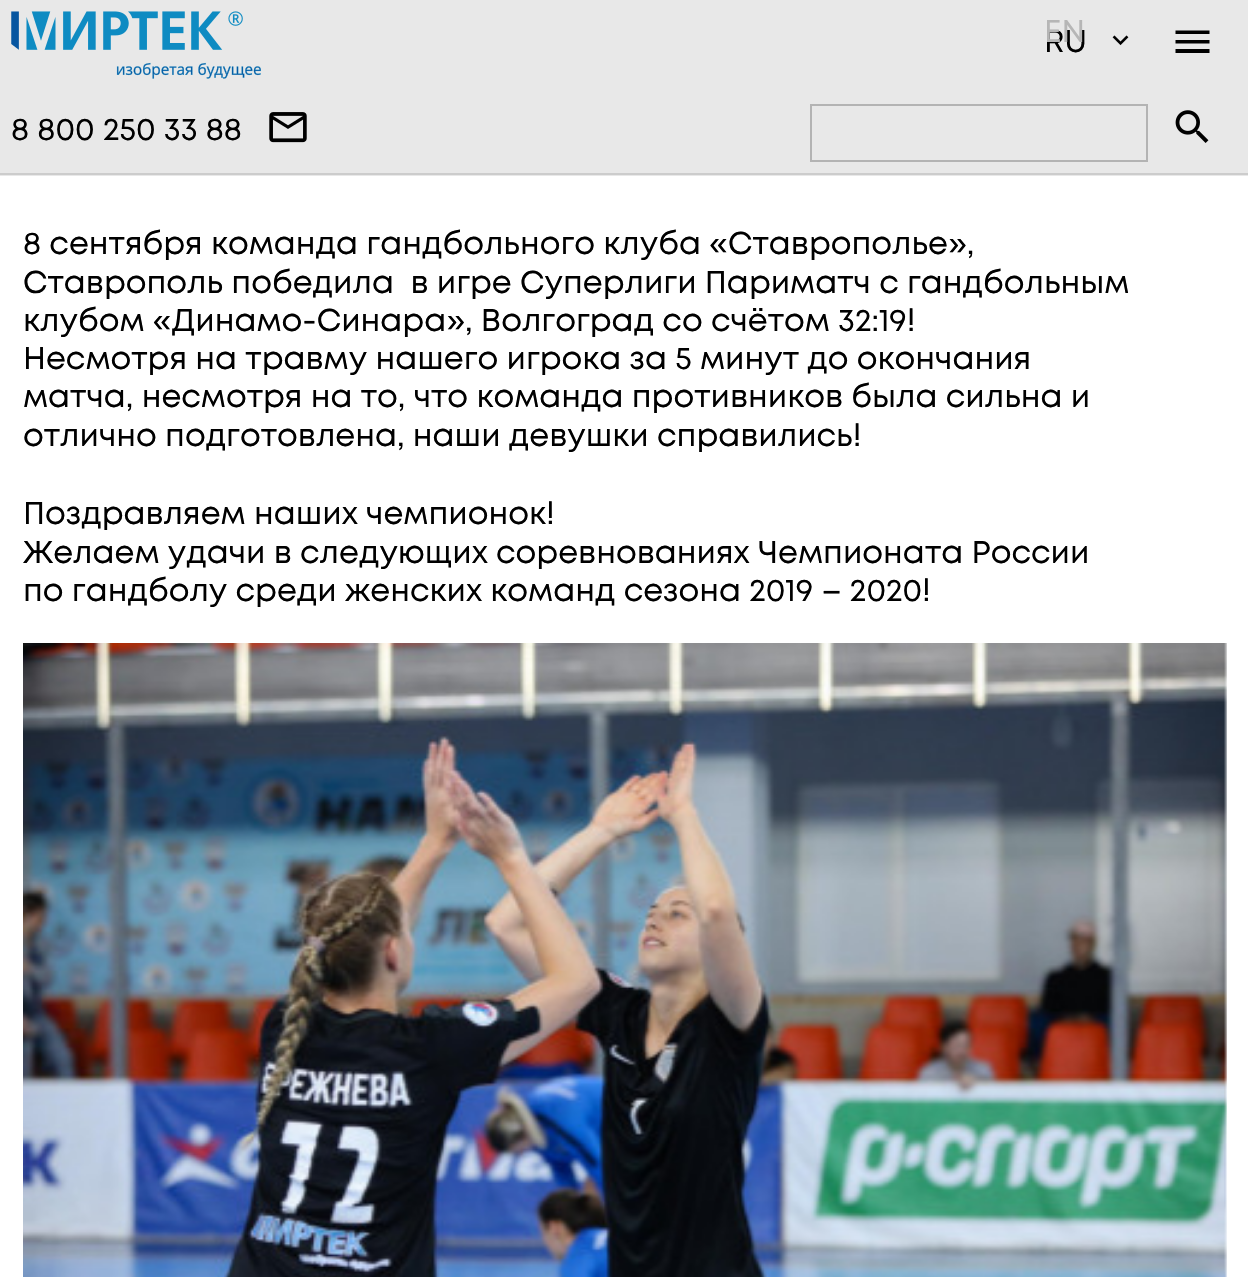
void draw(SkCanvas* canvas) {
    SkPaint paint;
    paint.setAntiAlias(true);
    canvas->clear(0xFFFFFFFF);
    paint.setColor(0xFFE8E8E8);
    canvas->drawRect(SkRect::MakeXYWH(0, 0, 1248, 176), paint);
    paint.setColor(0xFFCCCCCC);
    canvas->drawRect(SkRect::MakeXYWH(0, 173, 1248, 2), paint);
    canvas->drawImageRect(SkImages::DeferredFromEncodedData(SkData::MakeFromFileName("img1.png")), SkRect::MakeXYWH(11, 11, 250, 68), SkSamplingOptions());
    SkFont font1(fontMgr->matchFamilyStyle("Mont", SkFontStyle::Normal()), 31.5f);
    font1.setSubpixel(true);
    paint.setColor(0xFF000000);
    canvas->drawString("RU", 1044, 52, font1, paint);
    paint.setColor(0xFFB6B6B6);
    canvas->drawString("EN", 1044, 42, font1, paint);
    canvas->drawImageRect(SkImages::DeferredFromEncodedData(SkData::MakeFromFileName("img2.png")), SkRect::MakeXYWH(1112, 35, 17, 11), SkSamplingOptions());
    paint.setColor(0xFF000000);
    canvas->drawPath(SkPathBuilder().moveTo(1175.5f, 30.5f).lineTo(1209.5f, 30.5f).lineTo(1209.5f, 34).lineTo(1175.5f, 34).close().moveTo(1175.5f, 40).lineTo(1209.5f, 40).lineTo(1209.5f, 43.5f).lineTo(1175.5f, 43.5f).close().moveTo(1175.5f, 49).lineTo(1209.5f, 49).lineTo(1209.5f, 53).lineTo(1175.5f, 53).close().detach(), paint);
    paint.setStyle(SkPaint::kStroke_Style);
    paint.setStrokeWidth(2);
    paint.setColor(0xFFB3B3B3);
    canvas->drawRect(SkRect::MakeXYWH(811, 105, 336, 56), paint);
    canvas->drawImageRect(SkImages::DeferredFromEncodedData(SkData::MakeFromFileName("img3.png")), SkRect::MakeXYWH(1175, 110, 34, 33), SkSamplingOptions());
    paint.setStyle(SkPaint::kFill_Style);
    paint.setColor(0xFF000000);
    canvas->drawString("8 800 250 33 88", 11, 140, font1, paint);
    canvas->drawImageRect(SkImages::DeferredFromEncodedData(SkData::MakeFromFileName("img4.png")), SkRect::MakeXYWH(269, 112, 38, 31), SkSamplingOptions());
    canvas->drawString("8 сентября команда гандбольного клуба «Ставрополье»,", 23, 254, font1, paint);
    canvas->drawString("Ставрополь победила  в игре Суперлиги Париматч с гандбольным", 23, 293, font1, paint);
    canvas->drawString("клубом «Динамо-Синара», Волгоград со счётом 32:19!", 23, 331, font1, paint);
    canvas->drawString("Несмотря на травму нашего игрока за 5 минут до окончания", 23, 369, font1, paint);
    canvas->drawString("матча, несмотря на то, что команда противников была сильна и", 23, 407, font1, paint);
    canvas->drawString("отлично подготовлена, наши девушки справились!", 23, 446, font1, paint);
    canvas->drawString("Поздравляем наших чемпионок!", 23, 524, font1, paint);
    canvas->drawString("Желаем удачи в следующих соревнованиях Чемпионата России", 23, 563, font1, paint);
    canvas->drawString("по гандболу среди женских команд сезона 2019 – 2020!", 23, 601, font1, paint);
    canvas->drawImageRect(SkImages::DeferredFromEncodedData(SkData::MakeFromFileName("img5.png")), SkRect::MakeXYWH(23, 643, 1204, 634), SkSamplingOptions());
    canvas->drawImageRect(SkImages::DeferredFromEncodedData(SkData::MakeFromFileName("img6.png")), SkRect::MakeXYWH(1224, 678, 2, 599), SkSamplingOptions());
}
